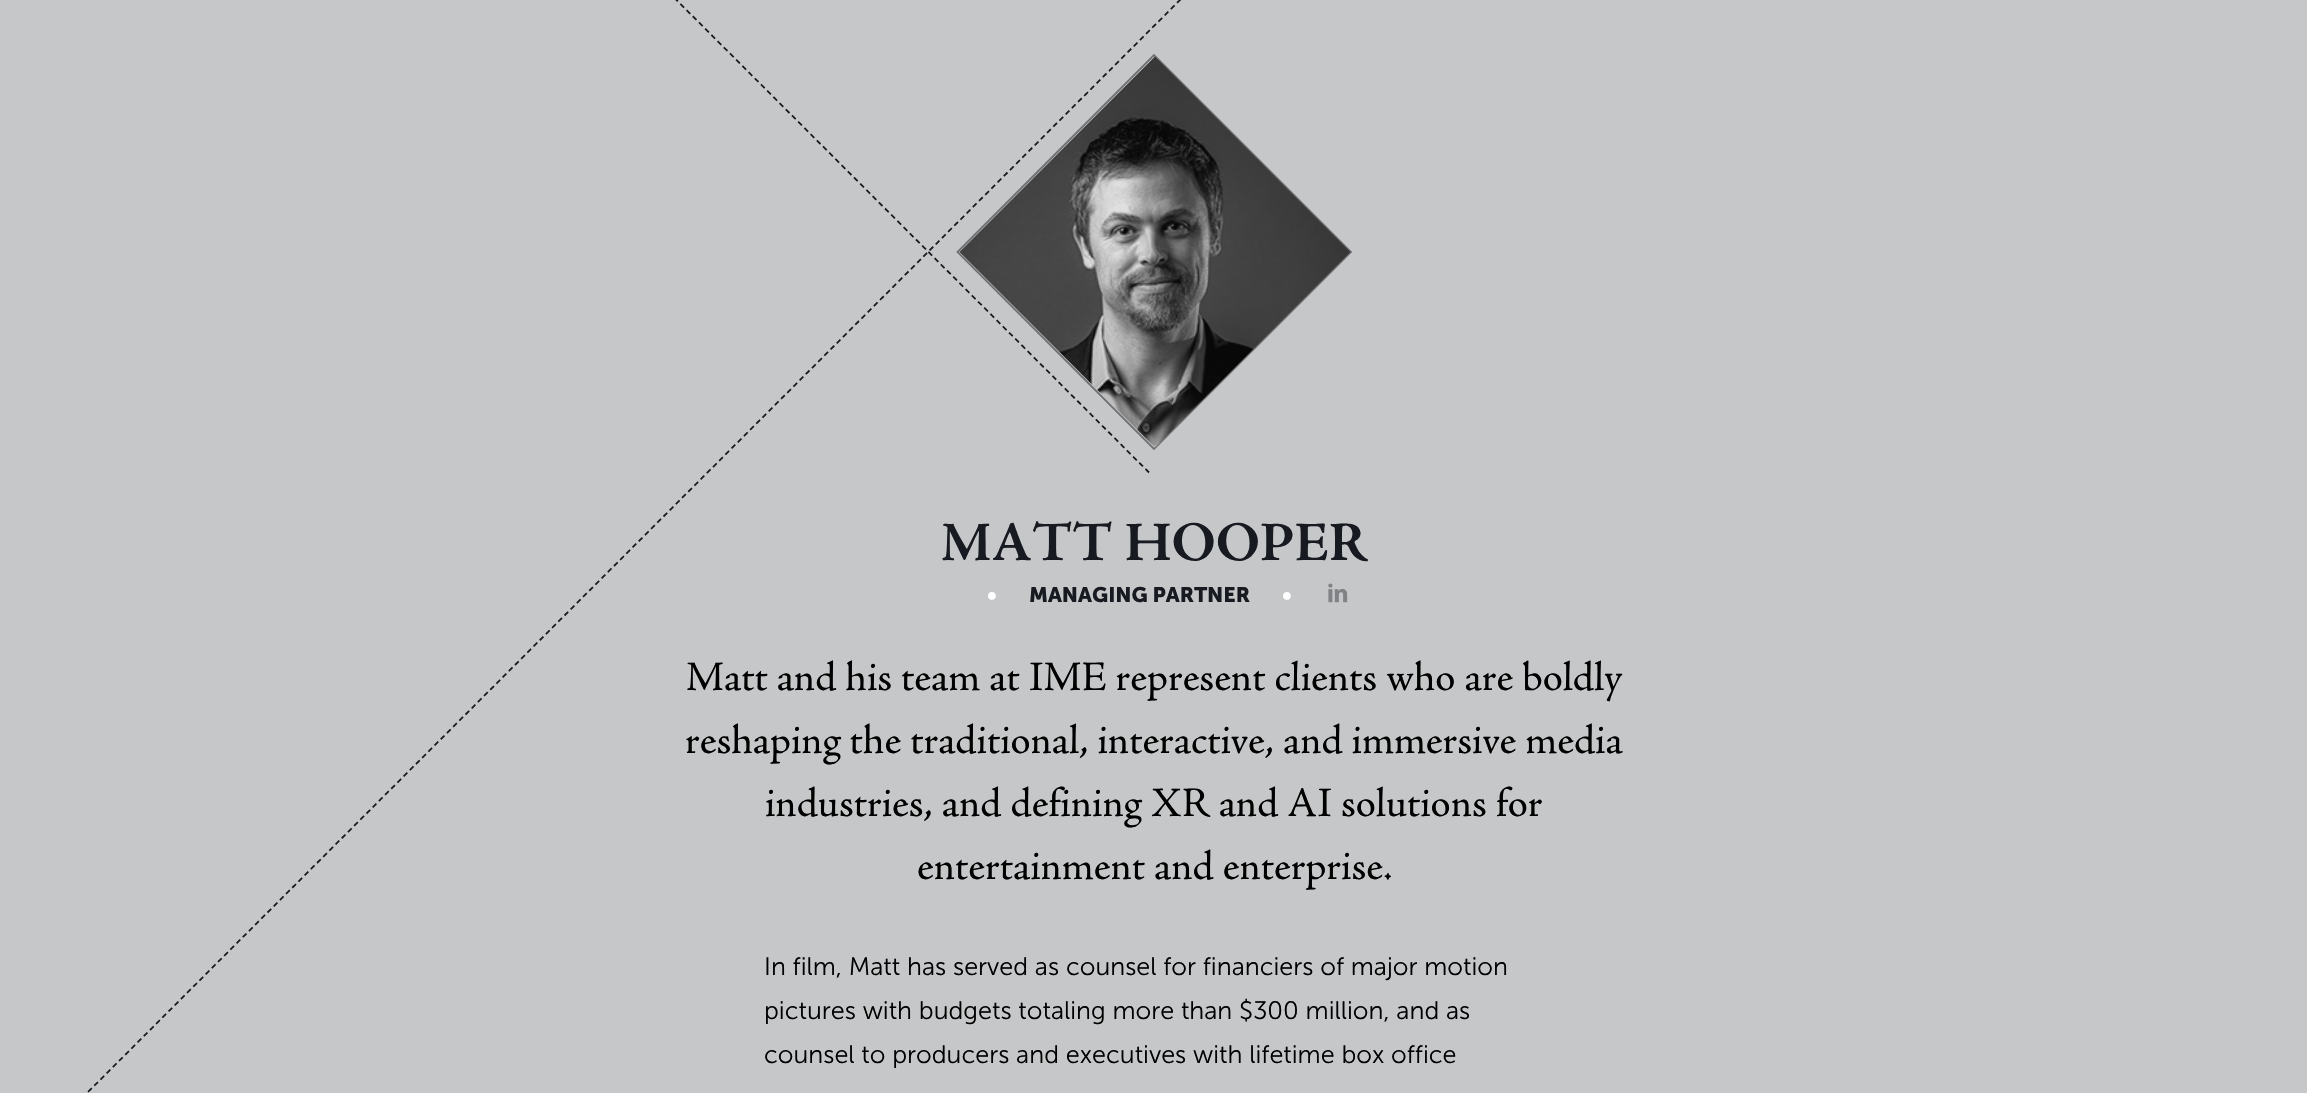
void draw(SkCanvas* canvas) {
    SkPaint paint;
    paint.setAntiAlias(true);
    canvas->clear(0xFFC6C7C8);
    paint.setStyle(SkPaint::kStroke_Style);
    paint.setStrokeWidth(1.8f);
    paint.setColor(0xFF6F7175);
    canvas->drawPath(SkPathBuilder().moveTo(957.5f, 252).lineTo(1154, 55).lineTo(1351, 252).lineTo(1154, 449).close().detach(), paint);
    paint.setColor(0xFF171B21);
    paint.setPathEffect(SkDashPathEffect::Make({{5.25f, 3.52f}}, 0));
    canvas->drawPath(SkPathBuilder().moveTo(-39, -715.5f).lineTo(1149, 472.5f).detach(), paint);
    paint.setPathEffect(nullptr);
    canvas->drawImageRect(SkImages::DeferredFromEncodedData(SkData::MakeFromFileName("img1.png")), SkRect::MakeXYWH(959, 56, 392, 392), SkSamplingOptions());
    paint.setPathEffect(SkDashPathEffect::Make({{5.25f, 3.5f}}, 0));
    canvas->drawPath(SkPathBuilder().moveTo(-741, 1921).lineTo(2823, -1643).detach(), paint);
    paint.setPathEffect(nullptr);
    SkFont font1(fontMgr->matchFamilyStyle("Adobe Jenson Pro", SkFontStyle::Bold()), 56);
    font1.setSubpixel(true);
    paint.setStyle(SkPaint::kFill_Style);
    canvas->drawString("MATT HOOPER", 941, 560, font1, paint);
    SkFont font2(fontMgr->matchFamilyStyle("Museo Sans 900", SkFontStyle::Bold()), 21);
    font2.setSubpixel(true);
    paint.setColor(0xFFFFFFFF);
    canvas->drawString("•", 987, 602, font2, paint);
    paint.setColor(0xFF171B21);
    canvas->drawString("MANAGING PARTNER", 1029, 602, font2, paint);
    paint.setColor(0xFFFFFFFF);
    canvas->drawString("•", 1282, 602, font2, paint);
    canvas->drawImageRect(SkImages::DeferredFromEncodedData(SkData::MakeFromFileName("img2.png")), SkRect::MakeXYWH(1328, 583, 20, 20), SkSamplingOptions());
    SkFont font3(fontMgr->matchFamilyStyle("Adobe Jenson Pro", SkFontStyle::Normal()), 42);
    font3.setSubpixel(true);
    paint.setColor(0xFF000000);
    canvas->drawString("Matt and his team at IME represent clients who are boldly", 686, 690, font3, paint);
    canvas->drawString("reshaping the traditional, interactive, and immersive media", 685, 753, font3, paint);
    canvas->drawString("industries, and defining XR and AI solutions for", 765, 816, font3, paint);
    canvas->drawString("entertainment and enterprise.", 917, 879, font3, paint);
    SkFont font4(fontMgr->matchFamilyStyle("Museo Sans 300", SkFontStyle(300, SkFontStyle::kNormal_Width, SkFontStyle::kUpright_Slant)), 25.2f);
    font4.setSubpixel(true);
    canvas->drawString("In film, Matt has served as counsel for financiers of major motion", 764, 975, font4, paint);
    canvas->drawString("pictures with budgets totaling more than $300 million, and as", 764, 1019, font4, paint);
    canvas->drawString("counsel to producers and executives with lifetime box office", 764, 1063, font4, paint);
}
